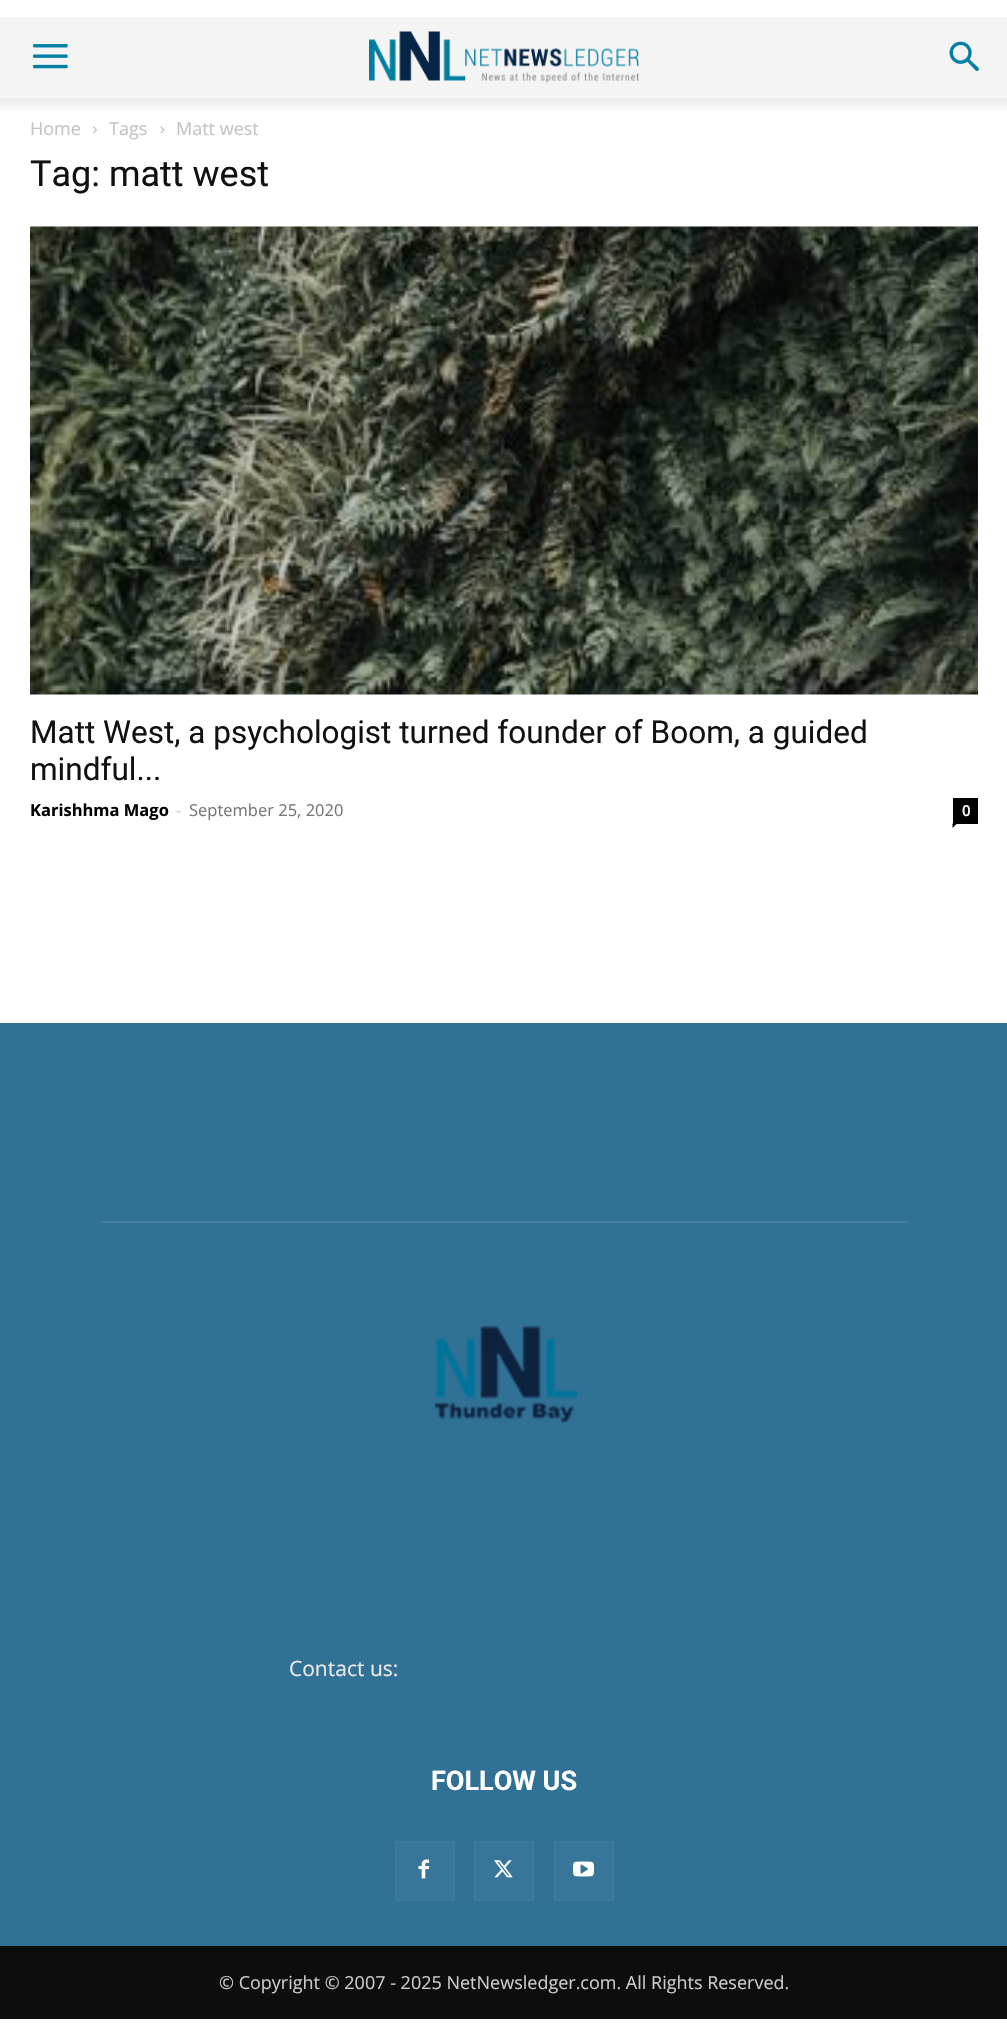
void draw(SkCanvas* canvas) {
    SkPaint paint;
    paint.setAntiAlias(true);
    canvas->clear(0xFFFFFFFF);
    paint.setColor(0xFFF4F4F4);
    canvas->drawRect(SkRect::MakeXYWH(0, 17, 1007, 81), paint);
    canvas->drawImageRect(SkImages::DeferredFromEncodedData(SkData::MakeFromFileName("img1.png")), SkRect::MakeXYWH(33, 44, 35, 25), SkSamplingOptions());
    canvas->drawImageRect(SkImages::DeferredFromEncodedData(SkData::MakeFromFileName("img2.png")), SkRect::MakeXYWH(369, 31, 270, 52), SkSamplingOptions());
    canvas->drawImageRect(SkImages::DeferredFromEncodedData(SkData::MakeFromFileName("img3.png")), SkRect::MakeXYWH(949, 41, 30, 30), SkSamplingOptions());
    canvas->drawImageRect(SkImages::DeferredFromEncodedData(SkData::MakeFromFileName("img4.png")), SkRect::MakeXYWH(0, 98, 1007, 12), SkSamplingOptions());
    SkFont font1(fontMgr->matchFamilyStyle("Open Sans", SkFontStyle::Normal()), 18);
    font1.setSubpixel(true);
    paint.setColor(0xFFC3C3C3);
    canvas->drawString("Home", 30, 135, font1, paint);
    canvas->drawImageRect(SkImages::DeferredFromEncodedData(SkData::MakeFromFileName("img5.png")), SkRect::MakeXYWH(93, 126, 4, 8), SkSamplingOptions());
    canvas->drawString("Tags", 109, 135, font1, paint);
    canvas->drawImageRect(SkImages::DeferredFromEncodedData(SkData::MakeFromFileName("img6.png")), SkRect::MakeXYWH(160, 126, 5, 8), SkSamplingOptions());
    canvas->drawString("Matt west", 176, 135, font1, paint);
    SkFont font2(fontMgr->matchFamilyStyle("Roboto", SkFontStyle::Normal()), 36);
    font2.setSubpixel(true);
    paint.setColor(0xFF111111);
    canvas->drawString("Tag: matt west", 30, 186, font2, paint);
    canvas->drawImageRect(SkImages::DeferredFromEncodedData(SkData::MakeFromFileName("img7.png")), SkRect::MakeXYWH(30, 226, 948, 469), SkSamplingOptions());
    SkFont font3(fontMgr->matchFamilyStyle("Roboto", SkFontStyle::Normal()), 31.5f);
    font3.setSubpixel(true);
    canvas->drawString("Matt West, a psychologist turned founder of Boom, a guided", 30, 743, font3, paint);
    canvas->drawString("mindful...", 30, 780, font3, paint);
    SkFont font4(fontMgr->matchFamilyStyle("Open Sans", SkFontStyle::Bold()), 16.5f);
    font4.setSubpixel(true);
    paint.setColor(0xFF000000);
    canvas->drawString("Karishhma Mago", 30, 816, font4, paint);
    SkFont font5(fontMgr->matchFamilyStyle("Open Sans", SkFontStyle::Normal()), 16.5f);
    font5.setSubpixel(true);
    paint.setColor(0xFFCCCCCC);
    canvas->drawString("-", 176, 816, font5, paint);
    paint.setColor(0xFF767676);
    canvas->drawString("September 25, 2020", 189, 816, font5, paint);
    paint.setColor(0xFF000000);
    canvas->drawRect(SkRect::MakeXYWH(953, 798, 25, 26), paint);
    SkFont font6(fontMgr->matchFamilyStyle("Open Sans", SkFontStyle(600, SkFontStyle::kNormal_Width, SkFontStyle::kUpright_Slant)), 15);
    font6.setSubpixel(true);
    paint.setColor(0xFFFFFFFF);
    canvas->drawString("0", 962, 816, font6, paint);
    paint.setColor(0xFF000000);
    canvas->drawPath(SkPathBuilder().moveTo(952.5f, 823.5f).lineTo(957, 823.5f).lineTo(952.5f, 828).close().detach(), paint);
    paint.setColor(0xFF317196);
    canvas->drawRect(SkRect::MakeXYWH(0, 1023, 1007, 923), paint);
    paint.setColor(0xFF467FA1);
    canvas->drawRect(SkRect::MakeXYWH(101, 1221, 807, 2), paint);
    canvas->drawImageRect(SkImages::DeferredFromEncodedData(SkData::MakeFromFileName("img8.png")), SkRect::MakeXYWH(434, 1325, 144, 98), SkSamplingOptions());
    SkFont font7(fontMgr->matchFamilyStyle("Open Sans", SkFontStyle::Normal()), 21);
    font7.setSubpixel(true);
    paint.setColor(0xFFEAEAEA);
    canvas->drawString("Contact us:", 289, 1676, font7, paint);
    SkFont font8(fontMgr->matchFamilyStyle("Roboto", SkFontStyle::Bold()), 27);
    font8.setSubpixel(true);
    paint.setColor(0xFFFFFFFF);
    canvas->drawString("FOLLOW US", 431, 1790, font8, paint);
    paint.setColor(0xFF377599);
    canvas->drawRect(SkRect::MakeXYWH(397, 1843, 56, 56), paint);
    canvas->drawImageRect(SkImages::DeferredFromEncodedData(SkData::MakeFromFileName("img9.png")), SkRect::MakeXYWH(418, 1859, 11, 20), SkSamplingOptions());
    paint.setStyle(SkPaint::kStroke_Style);
    paint.setStrokeWidth(2);
    paint.setColor(0xFF3D799C);
    canvas->drawRect(SkRect::MakeXYWH(396, 1842, 58, 58), paint);
    paint.setStyle(SkPaint::kFill_Style);
    paint.setColor(0xFF377599);
    canvas->drawRect(SkRect::MakeXYWH(476, 1843, 56, 56), paint);
    canvas->drawImageRect(SkImages::DeferredFromEncodedData(SkData::MakeFromFileName("img10.png")), SkRect::MakeXYWH(494, 1860, 19, 18), SkSamplingOptions());
    paint.setStyle(SkPaint::kStroke_Style);
    paint.setColor(0xFF3D799C);
    canvas->drawRect(SkRect::MakeXYWH(475, 1842, 58, 58), paint);
    paint.setStyle(SkPaint::kFill_Style);
    paint.setColor(0xFF377599);
    canvas->drawRect(SkRect::MakeXYWH(556, 1843, 56, 56), paint);
    canvas->drawImageRect(SkImages::DeferredFromEncodedData(SkData::MakeFromFileName("img11.png")), SkRect::MakeXYWH(573, 1861, 21, 16), SkSamplingOptions());
    paint.setStyle(SkPaint::kStroke_Style);
    paint.setColor(0xFF3D799C);
    canvas->drawRect(SkRect::MakeXYWH(555, 1842, 58, 58), paint);
    paint.setStyle(SkPaint::kFill_Style);
    paint.setColor(0xFF0D0D0D);
    canvas->drawRect(SkRect::MakeXYWH(0, 1946, 1007, 73), paint);
    paint.setColor(0xFFCCCCCC);
    canvas->drawString("© Copyright © 2007 - 2025 NetNewsledger.com. All Rights Reserved.", 219, 1989, font1, paint);
}
